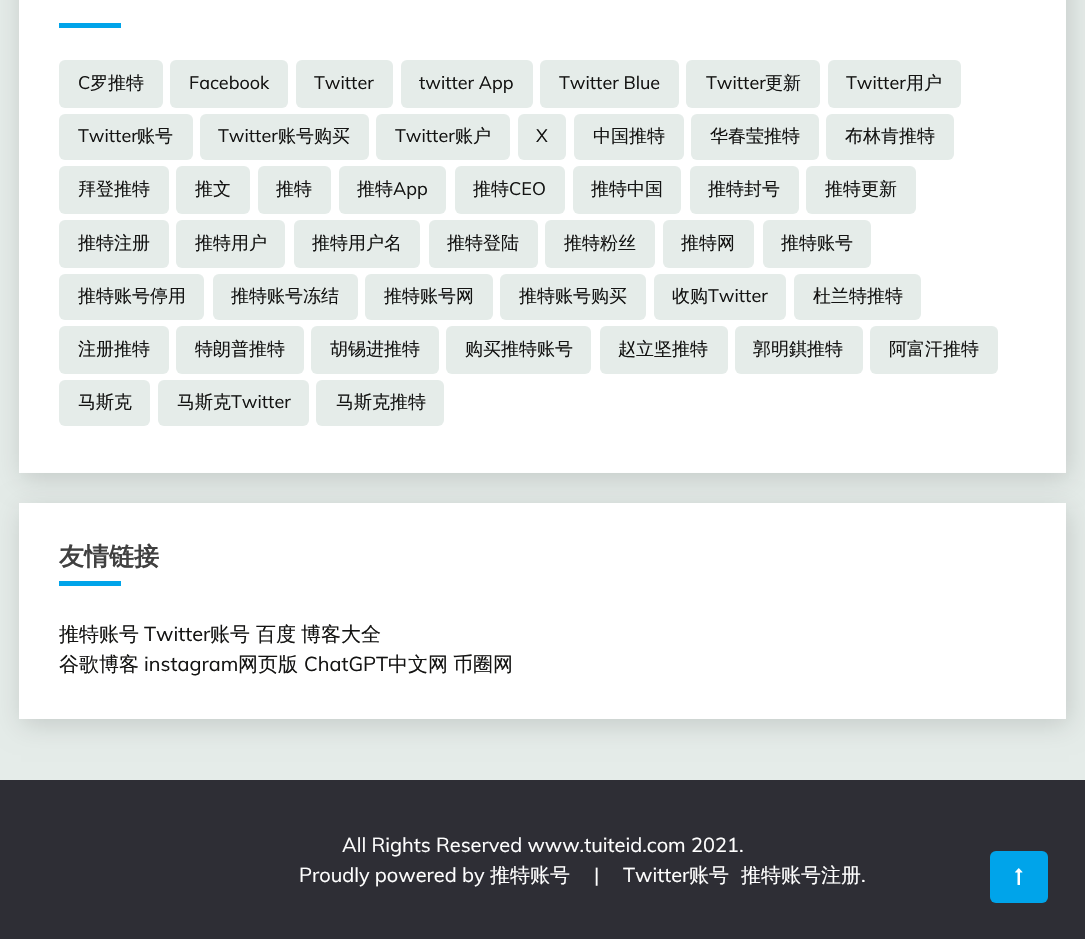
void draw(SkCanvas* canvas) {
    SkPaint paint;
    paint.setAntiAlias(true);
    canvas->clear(0xFFE5ECE9);
    paint.setColor(0x24000000);
    paint.setMaskFilter(SkMaskFilter::MakeBlur(kNormal_SkBlurStyle, 12.5f));
    canvas->drawRect(SkRect::MakeXYWH(21, -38, 1048, 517), paint);
    paint.setMaskFilter(nullptr);
    paint.setColor(0xFFFFFFFF);
    canvas->drawRect(SkRect::MakeXYWH(19, 0, 1047, 473), paint);
    paint.setColor(0xFF00A4EA);
    canvas->drawRect(SkRect::MakeXYWH(59, 23, 62, 5), paint);
    paint.setColor(0xFFE5ECE9);
    canvas->drawRoundRect(SkRect::MakeXYWH(59, 60, 104, 48), 6, 6, paint);
    SkFont font1(fontMgr->matchFamilyStyle("Muli", SkFontStyle::Normal()), 18);
    font1.setSubpixel(true);
    paint.setColor(0xFF141413);
    canvas->drawString("C", 78, 89, font1, paint);
    SkFont font2(fontMgr->matchFamilyStyle("WenQuanYi Zen Hei", SkFontStyle(500, SkFontStyle::kNormal_Width, SkFontStyle::kUpright_Slant)), 18);
    font2.setSubpixel(true);
    canvas->drawString("罗推特", 90, 89, font2, paint);
    paint.setColor(0xFFE5ECE9);
    canvas->drawRoundRect(SkRect::MakeXYWH(170, 60, 118, 48), 6, 6, paint);
    paint.setColor(0xFF141413);
    canvas->drawString("Facebook", 189, 89, font1, paint);
    paint.setColor(0xFFE5ECE9);
    canvas->drawRoundRect(SkRect::MakeXYWH(296, 60, 97, 48), 6, 6, paint);
    paint.setColor(0xFF141413);
    canvas->drawString("Twitter", 314, 89, font1, paint);
    paint.setColor(0xFFE5ECE9);
    canvas->drawRoundRect(SkRect::MakeXYWH(401, 60, 132, 48), 6, 6, paint);
    paint.setColor(0xFF141413);
    canvas->drawString("twitter App", 419, 89, font1, paint);
    paint.setColor(0xFFE5ECE9);
    canvas->drawRoundRect(SkRect::MakeXYWH(540, 60, 139, 48), 6, 6, paint);
    paint.setColor(0xFF141413);
    canvas->drawString("Twitter Blue", 559, 89, font1, paint);
    paint.setColor(0xFFE5ECE9);
    canvas->drawRoundRect(SkRect::MakeXYWH(686, 60, 134, 48), 6, 6, paint);
    paint.setColor(0xFF141413);
    canvas->drawString("Twitter", 706, 89, font1, paint);
    canvas->drawString("更新", 765, 89, font2, paint);
    paint.setColor(0xFFE5ECE9);
    canvas->drawRoundRect(SkRect::MakeXYWH(828, 60, 133, 48), 6, 6, paint);
    paint.setColor(0xFF141413);
    canvas->drawString("Twitter", 846, 89, font1, paint);
    canvas->drawString("用户", 906, 89, font2, paint);
    paint.setColor(0xFFE5ECE9);
    canvas->drawRoundRect(SkRect::MakeXYWH(59, 114, 134, 46), 6, 6, paint);
    paint.setColor(0xFF141413);
    canvas->drawString("Twitter", 78, 142, font1, paint);
    canvas->drawString("账号", 137, 142, font2, paint);
    paint.setColor(0xFFE5ECE9);
    canvas->drawRoundRect(SkRect::MakeXYWH(200, 114, 169, 46), 6, 6, paint);
    paint.setColor(0xFF141413);
    canvas->drawString("Twitter", 218, 142, font1, paint);
    canvas->drawString("账号购买", 278, 142, font2, paint);
    paint.setColor(0xFFE5ECE9);
    canvas->drawRoundRect(SkRect::MakeXYWH(376, 114, 134, 46), 6, 6, paint);
    paint.setColor(0xFF141413);
    canvas->drawString("Twitter", 395, 142, font1, paint);
    canvas->drawString("账户", 455, 142, font2, paint);
    paint.setColor(0xFFE5ECE9);
    canvas->drawRoundRect(SkRect::MakeXYWH(518, 114, 48, 46), 6, 6, paint);
    paint.setColor(0xFF141413);
    canvas->drawString("X", 536, 142, font1, paint);
    paint.setColor(0xFFE5ECE9);
    canvas->drawRoundRect(SkRect::MakeXYWH(574, 114, 110, 46), 6, 6, paint);
    paint.setColor(0xFF141413);
    canvas->drawString("中国推特", 593, 142, font2, paint);
    paint.setColor(0xFFE5ECE9);
    canvas->drawRoundRect(SkRect::MakeXYWH(691, 114, 128, 46), 6, 6, paint);
    paint.setColor(0xFF141413);
    canvas->drawString("华春莹推特", 710, 142, font2, paint);
    paint.setColor(0xFFE5ECE9);
    canvas->drawRoundRect(SkRect::MakeXYWH(826, 114, 128, 46), 6, 6, paint);
    paint.setColor(0xFF141413);
    canvas->drawString("布林肯推特", 845, 142, font2, paint);
    paint.setColor(0xFFE5ECE9);
    canvas->drawRoundRect(SkRect::MakeXYWH(59, 166, 110, 48), 6, 6, paint);
    paint.setColor(0xFF141413);
    canvas->drawString("拜登推特", 78, 195, font2, paint);
    paint.setColor(0xFFE5ECE9);
    canvas->drawRoundRect(SkRect::MakeXYWH(176, 166, 74, 48), 6, 6, paint);
    paint.setColor(0xFF141413);
    canvas->drawString("推文", 195, 195, font2, paint);
    paint.setColor(0xFFE5ECE9);
    canvas->drawRoundRect(SkRect::MakeXYWH(258, 166, 73, 48), 6, 6, paint);
    paint.setColor(0xFF141413);
    canvas->drawString("推特", 276, 195, font2, paint);
    paint.setColor(0xFFE5ECE9);
    canvas->drawRoundRect(SkRect::MakeXYWH(339, 166, 107, 48), 6, 6, paint);
    paint.setColor(0xFF141413);
    canvas->drawString("推特", 357, 195, font2, paint);
    canvas->drawString("App", 393, 195, font1, paint);
    paint.setColor(0xFFE5ECE9);
    canvas->drawRoundRect(SkRect::MakeXYWH(455, 166, 110, 48), 6, 6, paint);
    paint.setColor(0xFF141413);
    canvas->drawString("推特", 473, 195, font2, paint);
    canvas->drawString("CEO", 509, 195, font1, paint);
    paint.setColor(0xFFE5ECE9);
    canvas->drawRoundRect(SkRect::MakeXYWH(573, 166, 108, 48), 6, 6, paint);
    paint.setColor(0xFF141413);
    canvas->drawString("推特中国", 591, 195, font2, paint);
    paint.setColor(0xFFE5ECE9);
    canvas->drawRoundRect(SkRect::MakeXYWH(690, 166, 109, 48), 6, 6, paint);
    paint.setColor(0xFF141413);
    canvas->drawString("推特封号", 708, 195, font2, paint);
    paint.setColor(0xFFE5ECE9);
    canvas->drawRoundRect(SkRect::MakeXYWH(806, 166, 110, 48), 6, 6, paint);
    paint.setColor(0xFF141413);
    canvas->drawString("推特更新", 825, 195, font2, paint);
    paint.setColor(0xFFE5ECE9);
    canvas->drawRoundRect(SkRect::MakeXYWH(59, 220, 110, 48), 6, 6, paint);
    paint.setColor(0xFF141413);
    canvas->drawString("推特注册", 78, 249, font2, paint);
    paint.setColor(0xFFE5ECE9);
    canvas->drawRoundRect(SkRect::MakeXYWH(176, 220, 109, 48), 6, 6, paint);
    paint.setColor(0xFF141413);
    canvas->drawString("推特用户", 195, 249, font2, paint);
    paint.setColor(0xFFE5ECE9);
    canvas->drawRoundRect(SkRect::MakeXYWH(294, 220, 126, 48), 6, 6, paint);
    paint.setColor(0xFF141413);
    canvas->drawString("推特用户名", 312, 249, font2, paint);
    paint.setColor(0xFFE5ECE9);
    canvas->drawRoundRect(SkRect::MakeXYWH(429, 220, 109, 48), 6, 6, paint);
    paint.setColor(0xFF141413);
    canvas->drawString("推特登陆", 447, 249, font2, paint);
    paint.setColor(0xFFE5ECE9);
    canvas->drawRoundRect(SkRect::MakeXYWH(545, 220, 110, 48), 6, 6, paint);
    paint.setColor(0xFF141413);
    canvas->drawString("推特粉丝", 564, 249, font2, paint);
    paint.setColor(0xFFE5ECE9);
    canvas->drawRoundRect(SkRect::MakeXYWH(663, 220, 91, 48), 6, 6, paint);
    paint.setColor(0xFF141413);
    canvas->drawString("推特网", 681, 249, font2, paint);
    paint.setColor(0xFFE5ECE9);
    canvas->drawRoundRect(SkRect::MakeXYWH(763, 220, 108, 48), 6, 6, paint);
    paint.setColor(0xFF141413);
    canvas->drawString("推特账号", 781, 249, font2, paint);
    paint.setColor(0xFFE5ECE9);
    canvas->drawRoundRect(SkRect::MakeXYWH(59, 274, 145, 46), 6, 6, paint);
    paint.setColor(0xFF141413);
    canvas->drawString("推特账号停用", 78, 302, font2, paint);
    paint.setColor(0xFFE5ECE9);
    canvas->drawRoundRect(SkRect::MakeXYWH(213, 274, 145, 46), 6, 6, paint);
    paint.setColor(0xFF141413);
    canvas->drawString("推特账号冻结", 231, 302, font2, paint);
    paint.setColor(0xFFE5ECE9);
    canvas->drawRoundRect(SkRect::MakeXYWH(365, 274, 128, 46), 6, 6, paint);
    paint.setColor(0xFF141413);
    canvas->drawString("推特账号网", 384, 302, font2, paint);
    paint.setColor(0xFFE5ECE9);
    canvas->drawRoundRect(SkRect::MakeXYWH(500, 274, 146, 46), 6, 6, paint);
    paint.setColor(0xFF141413);
    canvas->drawString("推特账号购买", 519, 302, font2, paint);
    paint.setColor(0xFFE5ECE9);
    canvas->drawRoundRect(SkRect::MakeXYWH(654, 274, 132, 46), 6, 6, paint);
    paint.setColor(0xFF141413);
    canvas->drawString("收购", 672, 302, font2, paint);
    canvas->drawString("Twitter", 708, 302, font1, paint);
    paint.setColor(0xFFE5ECE9);
    canvas->drawRoundRect(SkRect::MakeXYWH(794, 274, 127, 46), 6, 6, paint);
    paint.setColor(0xFF141413);
    canvas->drawString("杜兰特推特", 813, 302, font2, paint);
    paint.setColor(0xFFE5ECE9);
    canvas->drawRoundRect(SkRect::MakeXYWH(59, 326, 110, 48), 6, 6, paint);
    paint.setColor(0xFF141413);
    canvas->drawString("注册推特", 78, 355, font2, paint);
    paint.setColor(0xFFE5ECE9);
    canvas->drawRoundRect(SkRect::MakeXYWH(176, 326, 128, 48), 6, 6, paint);
    paint.setColor(0xFF141413);
    canvas->drawString("特朗普推特", 195, 355, font2, paint);
    paint.setColor(0xFFE5ECE9);
    canvas->drawRoundRect(SkRect::MakeXYWH(311, 326, 128, 48), 6, 6, paint);
    paint.setColor(0xFF141413);
    canvas->drawString("胡锡进推特", 330, 355, font2, paint);
    paint.setColor(0xFFE5ECE9);
    canvas->drawRoundRect(SkRect::MakeXYWH(446, 326, 145, 48), 6, 6, paint);
    paint.setColor(0xFF141413);
    canvas->drawString("购买推特账号", 465, 355, font2, paint);
    paint.setColor(0xFFE5ECE9);
    canvas->drawRoundRect(SkRect::MakeXYWH(600, 326, 128, 48), 6, 6, paint);
    paint.setColor(0xFF141413);
    canvas->drawString("赵立坚推特", 618, 355, font2, paint);
    paint.setColor(0xFFE5ECE9);
    canvas->drawRoundRect(SkRect::MakeXYWH(735, 326, 128, 48), 6, 6, paint);
    paint.setColor(0xFF141413);
    canvas->drawString("郭明錤推特", 753, 355, font2, paint);
    paint.setColor(0xFFE5ECE9);
    canvas->drawRoundRect(SkRect::MakeXYWH(870, 326, 128, 48), 6, 6, paint);
    paint.setColor(0xFF141413);
    canvas->drawString("阿富汗推特", 889, 355, font2, paint);
    paint.setColor(0xFFE5ECE9);
    canvas->drawRoundRect(SkRect::MakeXYWH(59, 380, 91, 46), 6, 6, paint);
    paint.setColor(0xFF141413);
    canvas->drawString("马斯克", 78, 408, font2, paint);
    paint.setColor(0xFFE5ECE9);
    canvas->drawRoundRect(SkRect::MakeXYWH(158, 380, 151, 46), 6, 6, paint);
    paint.setColor(0xFF141413);
    canvas->drawString("马斯克", 177, 408, font2, paint);
    canvas->drawString("Twitter", 231, 408, font1, paint);
    paint.setColor(0xFFE5ECE9);
    canvas->drawRoundRect(SkRect::MakeXYWH(316, 380, 128, 46), 6, 6, paint);
    paint.setColor(0xFF141413);
    canvas->drawString("马斯克推特", 336, 408, font2, paint);
    paint.setColor(0x24000000);
    paint.setMaskFilter(SkMaskFilter::MakeBlur(kNormal_SkBlurStyle, 12.5f));
    canvas->drawRect(SkRect::MakeXYWH(21, 509, 1048, 216), paint);
    paint.setMaskFilter(nullptr);
    paint.setColor(0xFFFFFFFF);
    canvas->drawRect(SkRect::MakeXYWH(19, 503, 1047, 216), paint);
    SkFont font3(fontMgr->matchFamilyStyle("WenQuanYi Zen Hei", SkFontStyle::Bold()), 25);
    font3.setSubpixel(true);
    paint.setColor(0xFF404040);
    canvas->drawString("友情链接", 59, 565, font3, paint);
    paint.setColor(0xFF00A4EA);
    canvas->drawRect(SkRect::MakeXYWH(59, 581, 62, 5), paint);
    SkFont font4(fontMgr->matchFamilyStyle("WenQuanYi Zen Hei", SkFontStyle(500, SkFontStyle::kNormal_Width, SkFontStyle::kUpright_Slant)), 20);
    font4.setSubpixel(true);
    paint.setColor(0xFF141413);
    canvas->drawString("推特账号", 59, 641, font4, paint);
    SkFont font5(fontMgr->matchFamilyStyle("Muli", SkFontStyle::Normal()), 20);
    font5.setSubpixel(true);
    canvas->drawString("Twitter", 144, 641, font5, paint);
    canvas->drawString("账号", 210, 641, font4, paint);
    canvas->drawString("百度", 256, 641, font4, paint);
    canvas->drawString("博客大全", 301, 641, font4, paint);
    canvas->drawString("谷歌博客", 59, 671, font4, paint);
    canvas->drawString("instagram", 144, 671, font5, paint);
    canvas->drawString("网页版", 238, 671, font4, paint);
    canvas->drawString("ChatGPT", 304, 671, font5, paint);
    canvas->drawString("中文网", 388, 671, font4, paint);
    canvas->drawString("币圈网", 453, 671, font4, paint);
    paint.setColor(0xFF2E2E35);
    canvas->drawRect(SkRect::MakeXYWH(0, 780, 1085, 159), paint);
    paint.setColor(0xFFFFFFFF);
    canvas->drawString("All Rights Reserved www.tuiteid.com 2021.", 342, 852, font5, paint);
    canvas->drawString("Proudly powered by", 299, 882, font5, paint);
    canvas->drawString("推特账号", 490, 882, font4, paint);
    canvas->drawString("|", 594, 882, font5, paint);
    canvas->drawString("Twitter", 623, 882, font5, paint);
    canvas->drawString("账号", 689, 882, font4, paint);
    canvas->drawString("推特账号注册", 741, 882, font4, paint);
    canvas->drawString(".", 861, 882, font5, paint);
    paint.setColor(0xFF00A4EA);
    canvas->drawRoundRect(SkRect::MakeXYWH(990, 851, 58, 52), 6, 6, paint);
    canvas->drawImageRect(SkImages::DeferredFromEncodedData(SkData::MakeFromFileName("img1.png")), SkRect::MakeXYWH(1015, 868, 8, 17), SkSamplingOptions());
}
